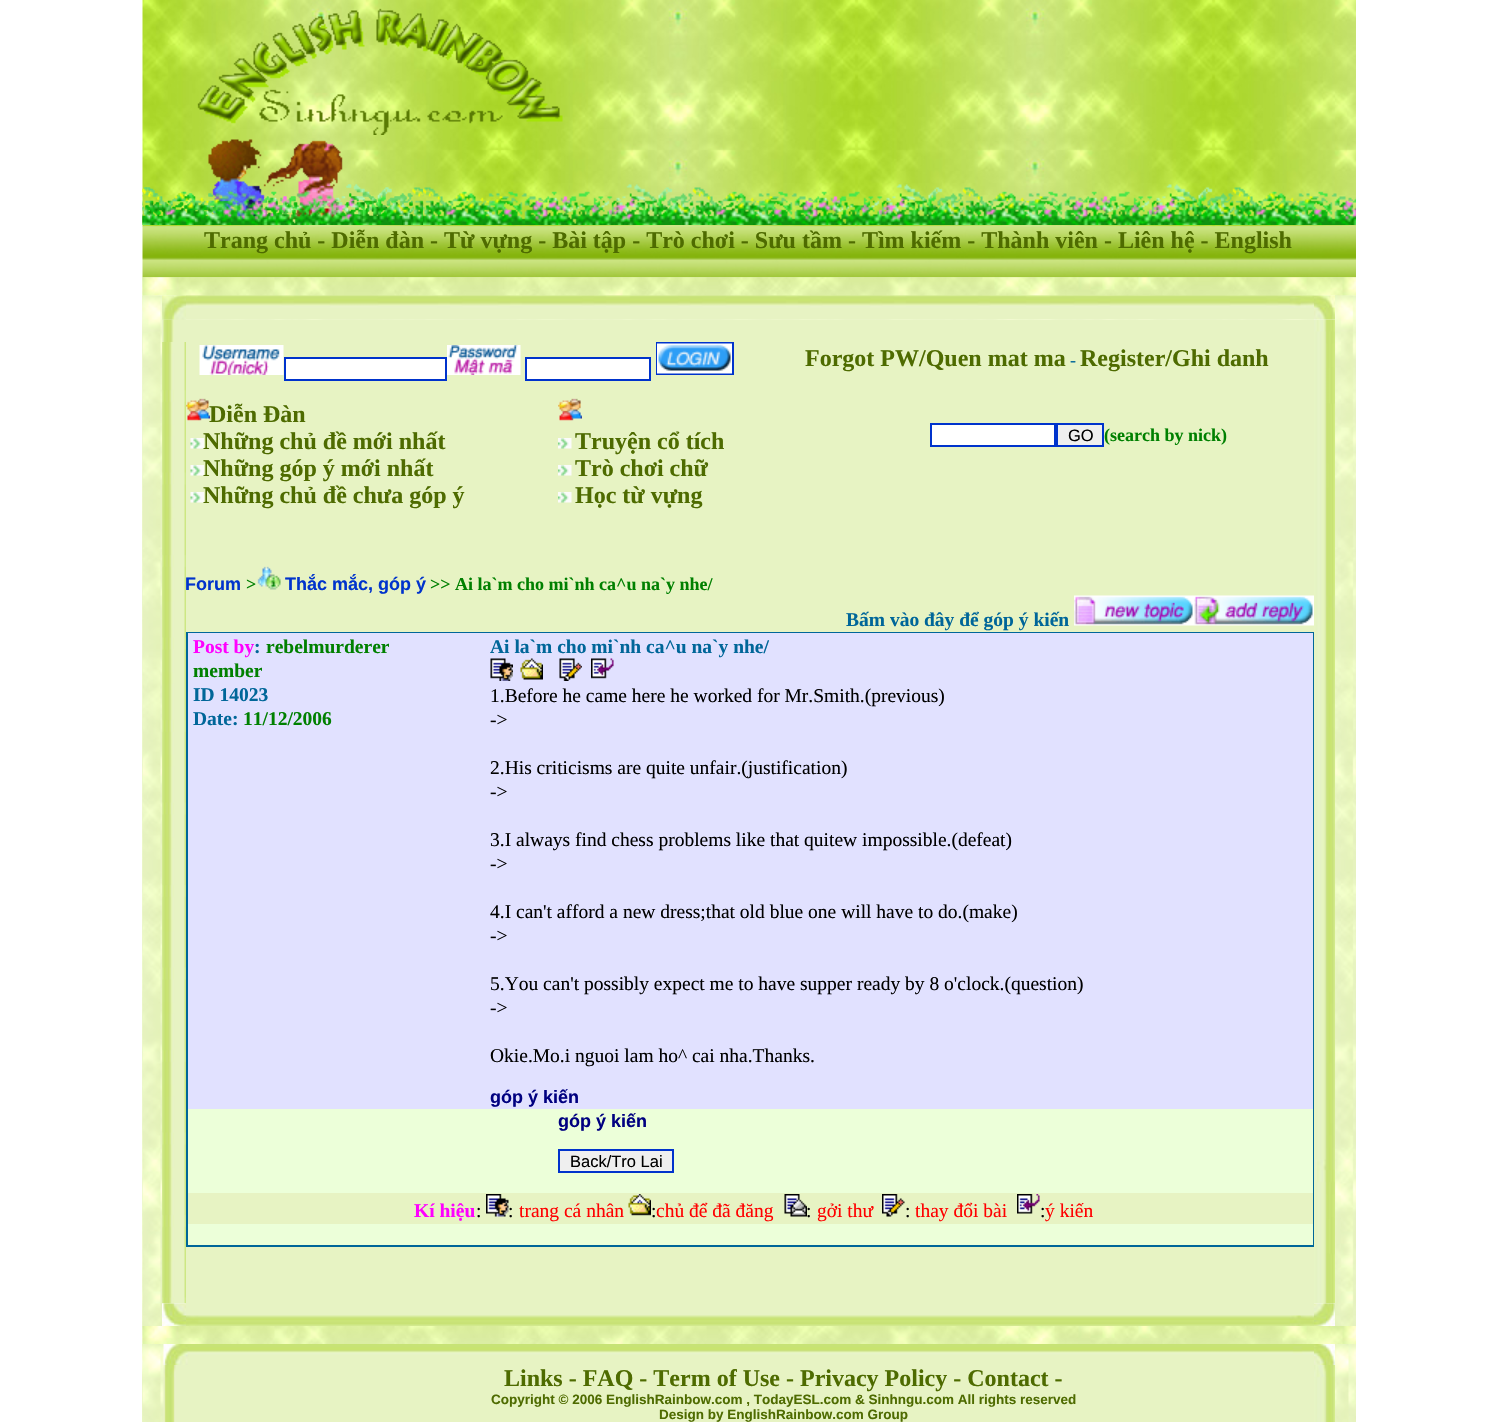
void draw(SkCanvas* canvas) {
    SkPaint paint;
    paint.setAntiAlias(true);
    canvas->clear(0xFFFFFFFF);
    canvas->drawImageRect(SkImages::DeferredFromEncodedData(SkData::MakeFromFileName("img1.png")), SkRect::MakeXYWH(142, 0, 1214, 227), SkSamplingOptions());
    canvas->drawImageRect(SkImages::DeferredFromEncodedData(SkData::MakeFromFileName("img2.png")), SkRect::MakeXYWH(197, 8, 366, 127), SkSamplingOptions());
    canvas->drawImageRect(SkImages::DeferredFromEncodedData(SkData::MakeFromFileName("img3.png")), SkRect::MakeXYWH(142, 184, 281, 41), SkSamplingOptions());
    canvas->drawImageRect(SkImages::DeferredFromEncodedData(SkData::MakeFromFileName("img4.png")), SkRect::MakeXYWH(142, 139, 271, 86), SkSamplingOptions());
    canvas->drawImageRect(SkImages::DeferredFromEncodedData(SkData::MakeFromFileName("img5.png")), SkRect::MakeXYWH(423, 184, 933, 41), SkSamplingOptions());
    canvas->drawImageRect(SkImages::DeferredFromEncodedData(SkData::MakeFromFileName("img6.png")), SkRect::MakeXYWH(142, 226, 1214, 52), SkSamplingOptions());
    SkFont font1(fontMgr->matchFamilyStyle("Liberation Serif", SkFontStyle::Bold()), 24);
    font1.setSubpixel(true);
    paint.setColor(0xFF4E6B00);
    canvas->drawString("Trang chủ - Diễn đàn - Từ vựng - Bài tập - Trò chơi - Sưu tầm - Tìm kiếm - Thành viên - Liên hệ - English", 204, 248, font1, paint);
    canvas->drawImageRect(SkImages::DeferredFromEncodedData(SkData::MakeFromFileName("img7.png")), SkRect::MakeXYWH(142, 277, 1214, 19), SkSamplingOptions());
    canvas->drawImageRect(SkImages::DeferredFromEncodedData(SkData::MakeFromFileName("img8.png")), SkRect::MakeXYWH(142, 295, 20, 1031), SkSamplingOptions());
    paint.setColor(0xFFE7F3C3);
    canvas->drawRect(SkRect::MakeXYWH(162, 319, 24, 1), paint);
    canvas->drawRect(SkRect::MakeXYWH(162, 320, 2, 22), paint);
    canvas->drawImageRect(SkImages::DeferredFromEncodedData(SkData::MakeFromFileName("img13.png")), SkRect::MakeXYWH(163, 319, 11, 23), SkSamplingOptions());
    canvas->drawImageRect(SkImages::DeferredFromEncodedData(SkData::MakeFromFileName("img9.png")), SkRect::MakeXYWH(162, 295, 24, 25), SkSamplingOptions());
    canvas->drawImageRect(SkImages::DeferredFromEncodedData(SkData::MakeFromFileName("img10.png")), SkRect::MakeXYWH(186, 295, 1128, 25), SkSamplingOptions());
    canvas->drawImageRect(SkImages::DeferredFromEncodedData(SkData::MakeFromFileName("img14.png")), SkRect::MakeXYWH(1314, 319, 21, 985), SkSamplingOptions());
    canvas->drawImageRect(SkImages::DeferredFromEncodedData(SkData::MakeFromFileName("img11.png")), SkRect::MakeXYWH(1314, 295, 21, 25), SkSamplingOptions());
    canvas->drawImageRect(SkImages::DeferredFromEncodedData(SkData::MakeFromFileName("img12.png")), SkRect::MakeXYWH(1335, 295, 21, 1031), SkSamplingOptions());
    canvas->drawRect(SkRect::MakeXYWH(174, 320, 1140, 22), paint);
    canvas->drawImageRect(SkImages::DeferredFromEncodedData(SkData::MakeFromFileName("img15.png")), SkRect::MakeXYWH(162, 342, 24, 962), SkSamplingOptions());
    canvas->drawRect(SkRect::MakeXYWH(186, 342, 1128, 973), paint);
    canvas->drawImageRect(SkImages::DeferredFromEncodedData(SkData::MakeFromFileName("img16.png")), SkRect::MakeXYWH(199, 345, 85, 30), SkSamplingOptions());
    paint.setColor(0xFFFFFFFF);
    canvas->drawRect(SkRect::MakeXYWH(285, 358, 161, 22), paint);
    paint.setStyle(SkPaint::kStroke_Style);
    paint.setStrokeWidth(2);
    paint.setColor(0xFF0033CC);
    canvas->drawRect(SkRect::MakeXYWH(285, 358, 161, 22), paint);
    canvas->drawImageRect(SkImages::DeferredFromEncodedData(SkData::MakeFromFileName("img17.png")), SkRect::MakeXYWH(447, 345, 74, 30), SkSamplingOptions());
    paint.setStyle(SkPaint::kFill_Style);
    paint.setColor(0xFFFFFFFF);
    canvas->drawRect(SkRect::MakeXYWH(526, 358, 124, 22), paint);
    paint.setStyle(SkPaint::kStroke_Style);
    paint.setColor(0xFF0033CC);
    canvas->drawRect(SkRect::MakeXYWH(526, 358, 124, 22), paint);
    canvas->drawRect(SkRect::MakeXYWH(657, 343, 76, 31), paint);
    canvas->drawImageRect(SkImages::DeferredFromEncodedData(SkData::MakeFromFileName("img18.png")), SkRect::MakeXYWH(657, 343, 75, 31), SkSamplingOptions());
    paint.setStyle(SkPaint::kFill_Style);
    paint.setColor(0xFF4E6B00);
    canvas->drawString("Forgot PW/Quen mat ma", 805, 366, font1, paint);
    SkFont font2(fontMgr->matchFamilyStyle("Liberation Serif", SkFontStyle::Normal()), 18);
    font2.setSubpixel(true);
    paint.setColor(0xFF006699);
    canvas->drawString("-", 1070, 366, font2, paint);
    paint.setColor(0xFF4E6B00);
    canvas->drawString("Register/Ghi danh", 1080, 366, font1, paint);
    canvas->drawImageRect(SkImages::DeferredFromEncodedData(SkData::MakeFromFileName("img19.png")), SkRect::MakeXYWH(186, 398, 24, 23), SkSamplingOptions());
    canvas->drawString("Diễn Đàn", 209, 422, font1, paint);
    canvas->drawImageRect(SkImages::DeferredFromEncodedData(SkData::MakeFromFileName("img20.png")), SkRect::MakeXYWH(190, 438, 14, 11), SkSamplingOptions());
    canvas->drawString("Những chủ đề mới nhất", 203, 449, font1, paint);
    canvas->drawImageRect(SkImages::DeferredFromEncodedData(SkData::MakeFromFileName("img20.png")), SkRect::MakeXYWH(190, 465, 14, 11), SkSamplingOptions());
    canvas->drawString("Những góp ý mới nhất", 203, 476, font1, paint);
    canvas->drawImageRect(SkImages::DeferredFromEncodedData(SkData::MakeFromFileName("img20.png")), SkRect::MakeXYWH(190, 492, 14, 11), SkSamplingOptions());
    canvas->drawString("Những chủ đề chưa góp ý", 203, 503, font1, paint);
    canvas->drawImageRect(SkImages::DeferredFromEncodedData(SkData::MakeFromFileName("img21.png")), SkRect::MakeXYWH(558, 398, 24, 23), SkSamplingOptions());
    canvas->drawImageRect(SkImages::DeferredFromEncodedData(SkData::MakeFromFileName("img22.png")), SkRect::MakeXYWH(558, 438, 14, 11), SkSamplingOptions());
    canvas->drawString("Truyện cổ tích", 575, 449, font1, paint);
    canvas->drawImageRect(SkImages::DeferredFromEncodedData(SkData::MakeFromFileName("img22.png")), SkRect::MakeXYWH(558, 465, 14, 11), SkSamplingOptions());
    canvas->drawString("Trò chơi chữ", 575, 476, font1, paint);
    canvas->drawImageRect(SkImages::DeferredFromEncodedData(SkData::MakeFromFileName("img22.png")), SkRect::MakeXYWH(558, 492, 14, 11), SkSamplingOptions());
    canvas->drawString("Học từ vựng", 575, 503, font1, paint);
    paint.setColor(0xFFFFFFFF);
    canvas->drawRect(SkRect::MakeXYWH(931, 424, 124, 22), paint);
    paint.setStyle(SkPaint::kStroke_Style);
    paint.setColor(0xFF0033CC);
    canvas->drawRect(SkRect::MakeXYWH(931, 424, 124, 22), paint);
    paint.setStyle(SkPaint::kFill_Style);
    paint.setColor(0xFFEFEFEF);
    canvas->drawRect(SkRect::MakeXYWH(1057, 424, 46, 22), paint);
    paint.setStyle(SkPaint::kStroke_Style);
    paint.setColor(0xFF0033CC);
    canvas->drawRect(SkRect::MakeXYWH(1057, 424, 46, 22), paint);
    SkFont font3(fontMgr->matchFamilyStyle("Liberation Sans", SkFontStyle::Normal()), 16.5f);
    font3.setSubpixel(true);
    paint.setStyle(SkPaint::kFill_Style);
    paint.setColor(0xFF000000);
    canvas->drawString("GO", 1068, 441, font3, paint);
    SkFont font4(fontMgr->matchFamilyStyle("Liberation Serif", SkFontStyle::Bold()), 18);
    font4.setSubpixel(true);
    paint.setColor(0xFF008000);
    canvas->drawString("(search by nick)", 1104, 441, font4, paint);
    SkFont font5(fontMgr->matchFamilyStyle("Liberation Sans", SkFontStyle::Bold()), 18);
    font5.setSubpixel(true);
    paint.setColor(0xFF0033CC);
    canvas->drawString("Forum", 185, 590, font5, paint);
    paint.setColor(0xFF008000);
    canvas->drawString(">", 246, 590, font4, paint);
    canvas->drawImageRect(SkImages::DeferredFromEncodedData(SkData::MakeFromFileName("img23.png")), SkRect::MakeXYWH(257, 566, 24, 24), SkSamplingOptions());
    paint.setColor(0xFF0033CC);
    canvas->drawString("Thắc mắc, góp ý", 285, 590, font5, paint);
    paint.setColor(0xFF008000);
    canvas->drawString(">> Ai la`m cho mi`nh ca^u na`y nhe/", 430, 590, font4, paint);
    SkFont font6(fontMgr->matchFamilyStyle("Liberation Serif", SkFontStyle::Bold()), 19.5f);
    font6.setSubpixel(true);
    paint.setColor(0xFF006699);
    canvas->drawString("Bấm vào đây để góp ý kiến", 846, 626, font6, paint);
    canvas->drawImageRect(SkImages::DeferredFromEncodedData(SkData::MakeFromFileName("img24.png")), SkRect::MakeXYWH(1074, 595, 120, 31), SkSamplingOptions());
    canvas->drawImageRect(SkImages::DeferredFromEncodedData(SkData::MakeFromFileName("img25.png")), SkRect::MakeXYWH(1194, 595, 120, 31), SkSamplingOptions());
    canvas->drawRect(SkRect::MakeXYWH(186, 632, 1128, 615), paint);
    paint.setColor(0xFFE1E1FF);
    canvas->drawRect(SkRect::MakeXYWH(188, 633, 1125, 476), paint);
    paint.setColor(0xFFFF00FF);
    canvas->drawString("Post by", 193, 653, font6, paint);
    paint.setColor(0xFF006699);
    canvas->drawString(":", 254, 653, font6, paint);
    paint.setColor(0xFF008000);
    canvas->drawString("rebelmurderer", 266, 653, font6, paint);
    canvas->drawString("member", 193, 677, font6, paint);
    paint.setColor(0xFF006699);
    canvas->drawString("ID 14023", 193, 701, font6, paint);
    canvas->drawString("Date:", 193, 725, font6, paint);
    paint.setColor(0xFF008000);
    canvas->drawString("11/12/2006", 243, 725, font6, paint);
    paint.setColor(0xFF006699);
    canvas->drawString("Ai la`m cho mi`nh ca^u na`y nhe/", 490, 653, font6, paint);
    canvas->drawImageRect(SkImages::DeferredFromEncodedData(SkData::MakeFromFileName("img26.png")), SkRect::MakeXYWH(490, 658, 23, 23), SkSamplingOptions());
    canvas->drawImageRect(SkImages::DeferredFromEncodedData(SkData::MakeFromFileName("img27.png")), SkRect::MakeXYWH(520, 658, 23, 22), SkSamplingOptions());
    canvas->drawImageRect(SkImages::DeferredFromEncodedData(SkData::MakeFromFileName("img28.png")), SkRect::MakeXYWH(559, 658, 23, 23), SkSamplingOptions());
    canvas->drawImageRect(SkImages::DeferredFromEncodedData(SkData::MakeFromFileName("img29.png")), SkRect::MakeXYWH(591, 658, 23, 21), SkSamplingOptions());
    SkFont font7(fontMgr->matchFamilyStyle("Liberation Serif", SkFontStyle::Normal()), 19.5f);
    font7.setSubpixel(true);
    paint.setColor(0xFF000000);
    canvas->drawString("1.Before he came here he worked for Mr.Smith.(previous)", 490, 702, font7, paint);
    canvas->drawString("->", 490, 726, font7, paint);
    canvas->drawString("2.His criticisms are quite unfair.(justification)", 490, 774, font7, paint);
    canvas->drawString("->", 490, 798, font7, paint);
    canvas->drawString("3.I always find chess problems like that quitew impossible.(defeat)", 490, 846, font7, paint);
    canvas->drawString("->", 490, 870, font7, paint);
    canvas->drawString("4.I can't afford a new dress;that old blue one will have to do.(make)", 490, 918, font7, paint);
    canvas->drawString("->", 490, 942, font7, paint);
    canvas->drawString("5.You can't possibly expect me to have supper ready by 8 o'clock.(question)", 490, 990, font7, paint);
    canvas->drawString("->", 490, 1014, font7, paint);
    canvas->drawString("Okie.Mo.i nguoi lam ho^ cai nha.Thanks.", 490, 1062, font7, paint);
    paint.setColor(0xFF000080);
    canvas->drawString("góp ý kiến", 490, 1103, font5, paint);
    paint.setColor(0xFFECFFD9);
    canvas->drawRect(SkRect::MakeXYWH(188, 1109, 1125, 84), paint);
    paint.setColor(0xFF000080);
    canvas->drawString("góp ý kiến", 558, 1127, font5, paint);
    paint.setColor(0xFFEFEFEF);
    canvas->drawRect(SkRect::MakeXYWH(559, 1150, 114, 22), paint);
    paint.setStyle(SkPaint::kStroke_Style);
    paint.setColor(0xFF0033CC);
    canvas->drawRect(SkRect::MakeXYWH(559, 1150, 114, 22), paint);
    paint.setStyle(SkPaint::kFill_Style);
    paint.setColor(0xFF000000);
    canvas->drawString("Back/Tro Lai", 570, 1167, font3, paint);
    paint.setColor(0xFFE7F3C3);
    canvas->drawRect(SkRect::MakeXYWH(188, 1193, 1125, 31), paint);
    paint.setColor(0xFFFF00FF);
    canvas->drawString("Kí hiệu", 414, 1217, font6, paint);
    paint.setColor(0xFF000000);
    canvas->drawString(":", 476, 1217, font7, paint);
    canvas->drawImageRect(SkImages::DeferredFromEncodedData(SkData::MakeFromFileName("img30.png")), SkRect::MakeXYWH(486, 1194, 23, 23), SkSamplingOptions());
    canvas->drawString(":", 508, 1217, font7, paint);
    paint.setColor(0xFFFF0000);
    canvas->drawString("trang cá nhân", 519, 1217, font7, paint);
    canvas->drawImageRect(SkImages::DeferredFromEncodedData(SkData::MakeFromFileName("img31.png")), SkRect::MakeXYWH(628, 1194, 23, 22), SkSamplingOptions());
    paint.setColor(0xFF000000);
    canvas->drawString(":", 651, 1217, font7, paint);
    paint.setColor(0xFFFF0000);
    canvas->drawString("chủ để đã đăng", 656, 1217, font7, paint);
    canvas->drawImageRect(SkImages::DeferredFromEncodedData(SkData::MakeFromFileName("img32.png")), SkRect::MakeXYWH(784, 1194, 23, 23), SkSamplingOptions());
    paint.setColor(0xFF000000);
    canvas->drawString(":", 806, 1217, font7, paint);
    paint.setColor(0xFFFF0000);
    canvas->drawString("gởi thư", 817, 1217, font7, paint);
    canvas->drawImageRect(SkImages::DeferredFromEncodedData(SkData::MakeFromFileName("img33.png")), SkRect::MakeXYWH(882, 1194, 23, 23), SkSamplingOptions());
    paint.setColor(0xFF000000);
    canvas->drawString(":", 905, 1217, font7, paint);
    paint.setColor(0xFFFF0000);
    canvas->drawString("thay đổi bài", 915, 1217, font7, paint);
    canvas->drawImageRect(SkImages::DeferredFromEncodedData(SkData::MakeFromFileName("img34.png")), SkRect::MakeXYWH(1017, 1194, 23, 20), SkSamplingOptions());
    paint.setColor(0xFF000000);
    canvas->drawString(":", 1040, 1217, font7, paint);
    paint.setColor(0xFFFF0000);
    canvas->drawString("ý kiến", 1045, 1217, font7, paint);
    paint.setColor(0xFFECFFD9);
    canvas->drawRect(SkRect::MakeXYWH(188, 1224, 1125, 21), paint);
    canvas->drawImageRect(SkImages::DeferredFromEncodedData(SkData::MakeFromFileName("img35.png")), SkRect::MakeXYWH(162, 1303, 24, 23), SkSamplingOptions());
    canvas->drawImageRect(SkImages::DeferredFromEncodedData(SkData::MakeFromFileName("img36.png")), SkRect::MakeXYWH(186, 1315, 1128, 11), SkSamplingOptions());
    canvas->drawImageRect(SkImages::DeferredFromEncodedData(SkData::MakeFromFileName("img37.png")), SkRect::MakeXYWH(186, 1316, 1115, 1), SkSamplingOptions());
    canvas->drawImageRect(SkImages::DeferredFromEncodedData(SkData::MakeFromFileName("img38.png")), SkRect::MakeXYWH(1314, 1303, 21, 23), SkSamplingOptions());
    canvas->drawImageRect(SkImages::DeferredFromEncodedData(SkData::MakeFromFileName("img39.png")), SkRect::MakeXYWH(142, 1326, 1214, 18), SkSamplingOptions());
    canvas->drawImageRect(SkImages::DeferredFromEncodedData(SkData::MakeFromFileName("img40.png")), SkRect::MakeXYWH(142, 1344, 1214, 78), SkSamplingOptions());
    canvas->drawImageRect(SkImages::DeferredFromEncodedData(SkData::MakeFromFileName("img41.png")), SkRect::MakeXYWH(142, 1344, 1, 78), SkSamplingOptions());
    canvas->drawImageRect(SkImages::DeferredFromEncodedData(SkData::MakeFromFileName("img42.png")), SkRect::MakeXYWH(163, 1344, 26, 21), SkSamplingOptions());
    paint.setColor(0xFFE7F3C3);
    canvas->drawRect(SkRect::MakeXYWH(189, 1355, 1125, 10), paint);
    canvas->drawImageRect(SkImages::DeferredFromEncodedData(SkData::MakeFromFileName("img43.png")), SkRect::MakeXYWH(189, 1344, 1125, 11), SkSamplingOptions());
    canvas->drawImageRect(SkImages::DeferredFromEncodedData(SkData::MakeFromFileName("img44.png")), SkRect::MakeXYWH(1314, 1344, 21, 21), SkSamplingOptions());
    canvas->drawImageRect(SkImages::DeferredFromEncodedData(SkData::MakeFromFileName("img45.png")), SkRect::MakeXYWH(163, 1365, 26, 57), SkSamplingOptions());
    canvas->drawRect(SkRect::MakeXYWH(189, 1365, 1125, 57), paint);
    canvas->drawImageRect(SkImages::DeferredFromEncodedData(SkData::MakeFromFileName("img46.png")), SkRect::MakeXYWH(1314, 1365, 21, 57), SkSamplingOptions());
    paint.setColor(0xFF4E6B00);
    canvas->drawString("Links - FAQ - Term of Use - Privacy Policy - Contact -", 504, 1386, font1, paint);
    SkFont font8(fontMgr->matchFamilyStyle("Liberation Sans", SkFontStyle::Bold()), 13.5f);
    font8.setSubpixel(true);
    canvas->drawString("Copyright © 2006 EnglishRainbow.com , TodayESL.com & Sinhngu.com All rights reserved", 491, 1404, font8, paint);
    canvas->drawString("Design by EnglishRainbow.com Group", 659, 1419, font8, paint);
}
